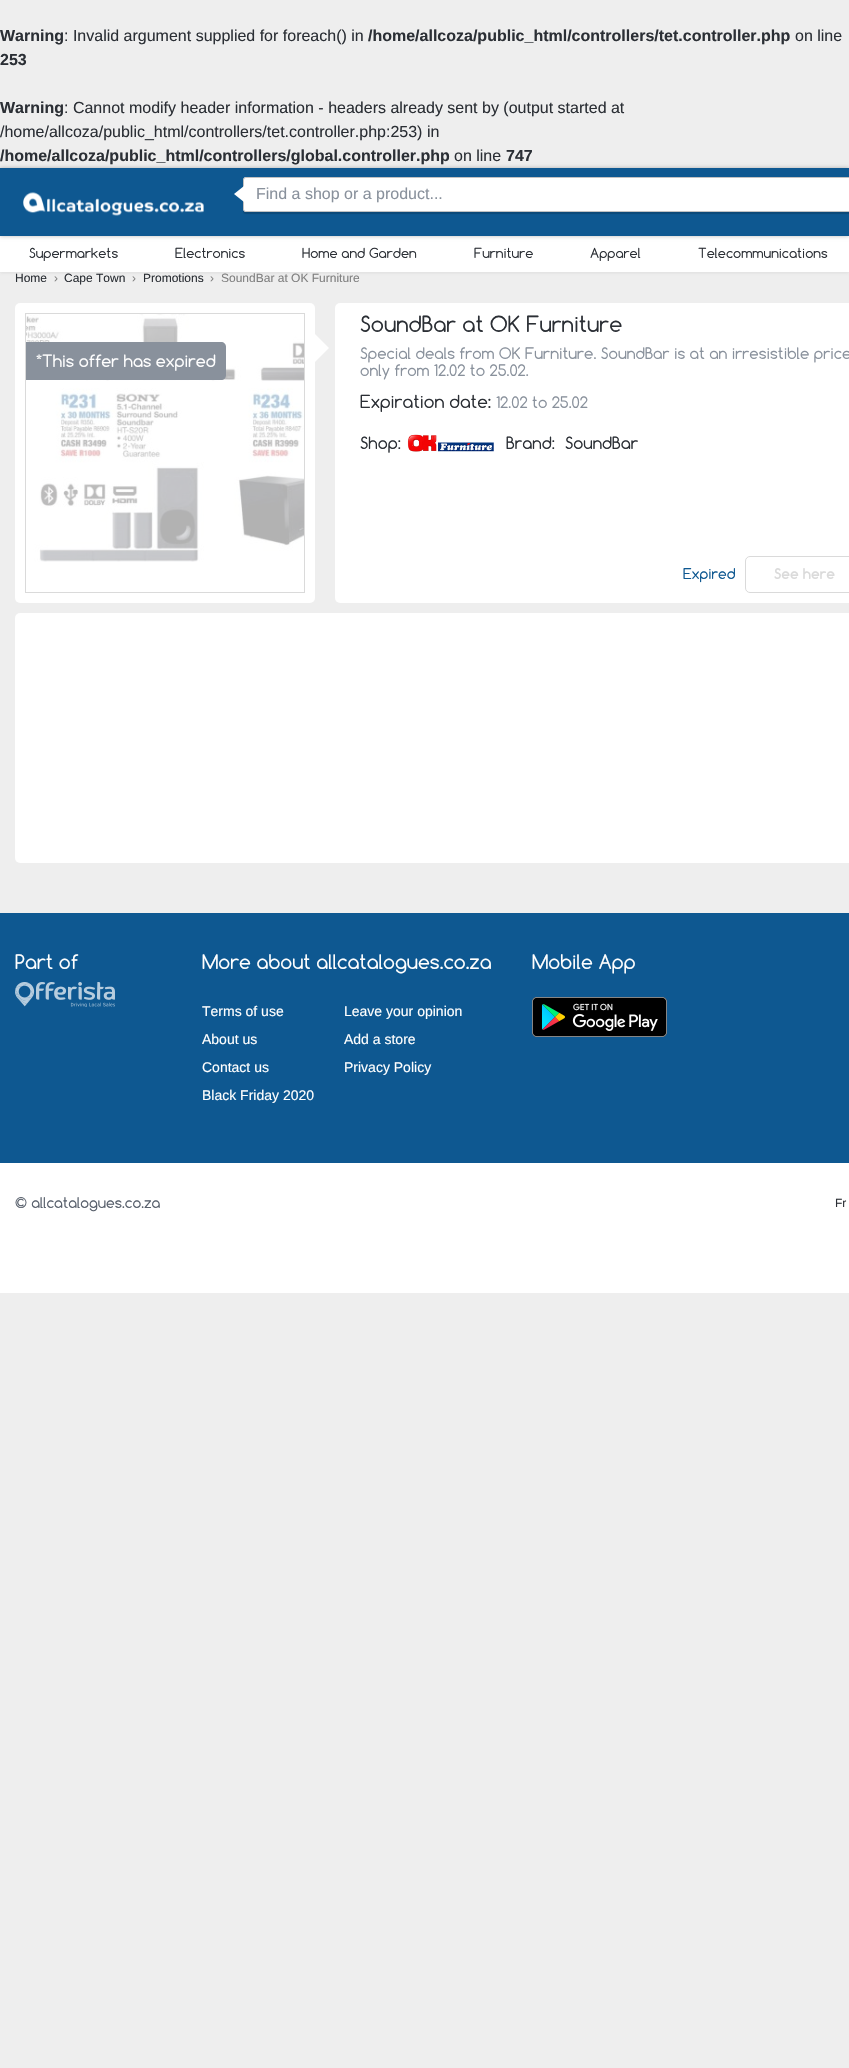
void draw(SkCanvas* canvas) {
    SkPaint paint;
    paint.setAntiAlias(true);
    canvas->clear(0xFFEEEEEE);
    SkFont font1(fontMgr->matchFamilyStyle("Liberation Sans", SkFontStyle::Bold()), 16);
    font1.setSubpixel(true);
    paint.setColor(0xFF2B2F35);
    canvas->drawString("Warning", 0, 41, font1, paint);
    SkFont font2(fontMgr->matchFamilyStyle("Liberation Sans", SkFontStyle::Normal()), 16);
    font2.setSubpixel(true);
    canvas->drawString(": Invalid argument supplied for foreach() in", 64, 41, font2, paint);
    canvas->drawString("/home/allcoza/public_html/controllers/tet.controller.php", 368, 41, font1, paint);
    canvas->drawString("on line", 795, 41, font2, paint);
    canvas->drawString("253", 0, 65, font1, paint);
    canvas->drawString("Warning", 0, 113, font1, paint);
    canvas->drawString(": Cannot modify header information - headers already sent by (output started at", 64, 113, font2, paint);
    canvas->drawString("/home/allcoza/public_html/controllers/tet.controller.php:253) in", 0, 137, font2, paint);
    canvas->drawString("/home/allcoza/public_html/controllers/global.controller.php", 0, 161, font1, paint);
    canvas->drawString("on line", 454, 161, font2, paint);
    canvas->drawString("747", 506, 161, font1, paint);
    paint.setColor(0x33999999);
    paint.setMaskFilter(SkMaskFilter::MakeBlur(kNormal_SkBlurStyle, 1.5f));
    canvas->drawRect(SkRect::MakeXYWH(0, 237, 849, 36), paint);
    paint.setMaskFilter(nullptr);
    paint.setColor(0xFFFFFFFF);
    canvas->drawRect(SkRect::MakeXYWH(0, 236, 849, 36), paint);
    paint.setColor(0x47000000);
    paint.setMaskFilter(SkMaskFilter::MakeBlur(kNormal_SkBlurStyle, 2));
    canvas->drawRect(SkRect::MakeXYWH(0, 168, 849, 68), paint);
    paint.setMaskFilter(nullptr);
    paint.setColor(0xFF0E5891);
    canvas->drawRect(SkRect::MakeXYWH(0, 168, 849, 68), paint);
    canvas->drawImageRect(SkImages::DeferredFromEncodedData(SkData::MakeFromFileName("img1.png")), SkRect::MakeXYWH(23, 192, 181, 24), SkSamplingOptions());
    paint.setColor(0xFFFFFFFF);
    canvas->drawPath(SkPathBuilder().moveTo(246, 177).lineTo(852, 177).lineTo(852, 212).lineTo(246, 212).cubicTo(244.5f, 212, 243, 210.5f, 243, 209).lineTo(243, 180).cubicTo(243, 178.5f, 244.5f, 177, 246, 177).close().detach(), paint);
    canvas->save();
    canvas->clipPath(SkPathBuilder(SkPathFillType::kEvenOdd).moveTo(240, 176).lineTo(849, 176).lineTo(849, 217).lineTo(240, 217).close().moveTo(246, 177).lineTo(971, 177).lineTo(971, 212).lineTo(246, 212).cubicTo(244.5f, 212, 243, 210.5f, 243, 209).lineTo(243, 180).cubicTo(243, 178.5f, 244.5f, 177, 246, 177).close().detach(), true);
    paint.setColor(0x2B000000);
    paint.setMaskFilter(SkMaskFilter::MakeBlur(kNormal_SkBlurStyle, 0.5f));
    canvas->drawRoundRect(SkRect::MakeXYWH(243, 179, 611, 35), 3, 3, paint);
    paint.setMaskFilter(nullptr);
    canvas->restore();
    paint.setStyle(SkPaint::kStroke_Style);
    paint.setStrokeWidth(1);
    paint.setColor(0xFFC1C1C1);
    canvas->drawPath(SkPathBuilder().moveTo(246, 177.5f).lineTo(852.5f, 177.5f).lineTo(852.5f, 211.5f).lineTo(246, 211.5f).cubicTo(244.5f, 211.5f, 243.5f, 210.5f, 243.5f, 209).lineTo(243.5f, 180).cubicTo(243.5f, 178.5f, 244.5f, 177.5f, 246, 177.5f).close().detach(), paint);
    paint.setStyle(SkPaint::kFill_Style);
    paint.setColor(0xFFFFFFFF);
    canvas->drawPath(SkPathBuilder().moveTo(244, 186).lineTo(244, 202).lineTo(234, 194).close().detach(), paint);
    paint.setColor(0xFF89919C);
    canvas->drawString("Find a shop or a product...", 256, 199, font2, paint);
    SkFont font3(fontMgr->matchFamilyStyle("Comfortaa", SkFontStyle::Normal()), 13);
    font3.setSubpixel(true);
    paint.setColor(0xFF2B2F35);
    canvas->drawString("Supermarkets", 29, 258, font3, paint);
    canvas->drawString("Electronics", 175, 258, font3, paint);
    canvas->drawString("Home and Garden", 302, 258, font3, paint);
    canvas->drawString("Furniture", 474, 258, font3, paint);
    canvas->drawString("Apparel", 590, 258, font3, paint);
    canvas->drawString("Telecommunications", 698, 258, font3, paint);
    SkFont font4(fontMgr->matchFamilyStyle("Liberation Sans", SkFontStyle::Normal()), 12);
    font4.setSubpixel(true);
    canvas->drawString("Home", 15, 282, font4, paint);
    paint.setColor(0xFF808080);
    canvas->drawString("›", 54, 282, font4, paint);
    paint.setColor(0xFF2B2F35);
    canvas->drawString("Cape Town", 64, 282, font4, paint);
    paint.setColor(0xFF808080);
    canvas->drawString("›", 132, 282, font4, paint);
    paint.setColor(0xFF2B2F35);
    canvas->drawString("Promotions", 143, 282, font4, paint);
    paint.setColor(0xFF808080);
    canvas->drawString("›", 210, 282, font4, paint);
    canvas->drawString("SoundBar at OK Furniture", 221, 282, font4, paint);
    paint.setColor(0xFFFFFFFF);
    canvas->drawRoundRect(SkRect::MakeXYWH(15, 303, 300, 300), 5, 5, paint);
    paint.setStyle(SkPaint::kStroke_Style);
    paint.setColor(0xFFDADADA);
    canvas->drawRect(SkRect::MakeXYWH(25.5f, 313.5f, 279, 279), paint);
    canvas->drawImageRect(SkImages::DeferredFromEncodedData(SkData::MakeFromFileName("img2.png")), SkRect::MakeXYWH(26, 314, 278, 248), SkSamplingOptions());
    paint.setStyle(SkPaint::kFill_Style);
    paint.setColor(0xFF89919C);
    canvas->drawPath(SkPathBuilder().moveTo(26, 342).lineTo(221, 342).cubicTo(224, 342, 226, 344, 226, 347).lineTo(226, 375).cubicTo(226, 378, 224, 380, 221, 380).lineTo(26, 380).close().detach(), paint);
    SkFont font5(fontMgr->matchFamilyStyle("Comfortaa", SkFontStyle::Normal()), 16);
    font5.setSubpixel(true);
    paint.setColor(0xFFFFFFFF);
    canvas->drawString("*This offer has expired", 36, 367, font5, paint);
    canvas->drawPath(SkPathBuilder().moveTo(314, 363).lineTo(314, 333).lineTo(329, 348).close().detach(), paint);
    canvas->drawRoundRect(SkRect::MakeXYWH(335, 303, 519, 300), 5, 5, paint);
    SkFont font6(fontMgr->matchFamilyStyle("Comfortaa", SkFontStyle::Normal()), 21);
    font6.setSubpixel(true);
    paint.setColor(0xFF2B2F35);
    canvas->drawString("SoundBar at OK Furniture", 360, 332, font6, paint);
    SkFont font7(fontMgr->matchFamilyStyle("Comfortaa", SkFontStyle::Normal()), 15);
    font7.setSubpixel(true);
    paint.setColor(0xFF89919C);
    canvas->drawString("Special deals from OK Furniture. SoundBar is at an irresistible price", 360, 359, font7, paint);
    canvas->drawString("only from 12.02 to 25.02.", 360, 376, font7, paint);
    SkFont font8(fontMgr->matchFamilyStyle("Comfortaa", SkFontStyle::Normal()), 17);
    font8.setSubpixel(true);
    paint.setColor(0xFF2B2F35);
    canvas->drawString("Expiration date:", 360, 408, font8, paint);
    paint.setColor(0xFF89919C);
    canvas->drawString("12.02 to 25.02", 496, 408, font7, paint);
    paint.setColor(0xFF2B2F35);
    canvas->drawString("Shop:", 360, 449, font5, paint);
    canvas->drawImageRect(SkImages::DeferredFromEncodedData(SkData::MakeFromFileName("img3.png")), SkRect::MakeXYWH(407, 434, 87, 18), SkSamplingOptions());
    canvas->drawString("Brand:", 506, 449, font5, paint);
    canvas->drawString("SoundBar", 565, 449, font5, paint);
    SkFont font9(fontMgr->matchFamilyStyle("Comfortaa", SkFontStyle::Normal()), 14);
    font9.setSubpixel(true);
    paint.setColor(0xFF0E5891);
    canvas->drawString("Expired", 683, 579, font9, paint);
    paint.setStyle(SkPaint::kStroke_Style);
    paint.setColor(0xFFDADADA);
    canvas->drawRoundRect(SkRect::MakeXYWH(745.5f, 556.5f, 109, 36), 4.5f, 4.5f, paint);
    SkFont font10(fontMgr->matchFamilyStyle("Comfortaa", SkFontStyle::Bold()), 14);
    font10.setSubpixel(true);
    paint.setStyle(SkPaint::kFill_Style);
    canvas->drawString("See here", 774, 579, font10, paint);
    paint.setColor(0xFFFFFFFF);
    canvas->drawRoundRect(SkRect::MakeXYWH(15, 613, 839, 250), 5, 5, paint);
    canvas->drawRect(SkRect::MakeXYWH(0, 1163, 849, 130), paint);
    paint.setColor(0xFF0E5891);
    canvas->drawRect(SkRect::MakeXYWH(0, 913, 849, 250), paint);
    SkFont font11(fontMgr->matchFamilyStyle("Comfortaa", SkFontStyle::Normal()), 19);
    font11.setSubpixel(true);
    paint.setColor(0xFFFFFFFF);
    canvas->drawString("Part of", 15, 969, font11, paint);
    canvas->drawImageRect(SkImages::DeferredFromEncodedData(SkData::MakeFromFileName("img4.png")), SkRect::MakeXYWH(15, 982, 100, 25), SkSamplingOptions());
    canvas->drawString("More about allcatalogues.co.za", 202, 969, font11, paint);
    SkFont font12(fontMgr->matchFamilyStyle("Liberation Sans", SkFontStyle::Normal()), 14);
    font12.setSubpixel(true);
    canvas->drawString("Terms of use", 202, 1016, font12, paint);
    canvas->drawString("About us", 202, 1044, font12, paint);
    canvas->drawString("Contact us", 202, 1072, font12, paint);
    canvas->drawString("Black Friday 2020", 202, 1100, font12, paint);
    canvas->drawString("Leave your opinion", 344, 1016, font12, paint);
    canvas->drawString("Add a store", 344, 1044, font12, paint);
    canvas->drawString("Privacy Policy", 344, 1072, font12, paint);
    canvas->drawString("Mobile App", 532, 969, font11, paint);
    canvas->drawImageRect(SkImages::DeferredFromEncodedData(SkData::MakeFromFileName("img5.png")), SkRect::MakeXYWH(532, 997, 135, 40), SkSamplingOptions());
    paint.setColor(0xFF58606C);
    canvas->drawString("© allcatalogues.co.za", 15, 1208, font9, paint);
    paint.setColor(0xFF2B2F35);
    canvas->drawString("Fr", 835, 1207, font4, paint);
}
